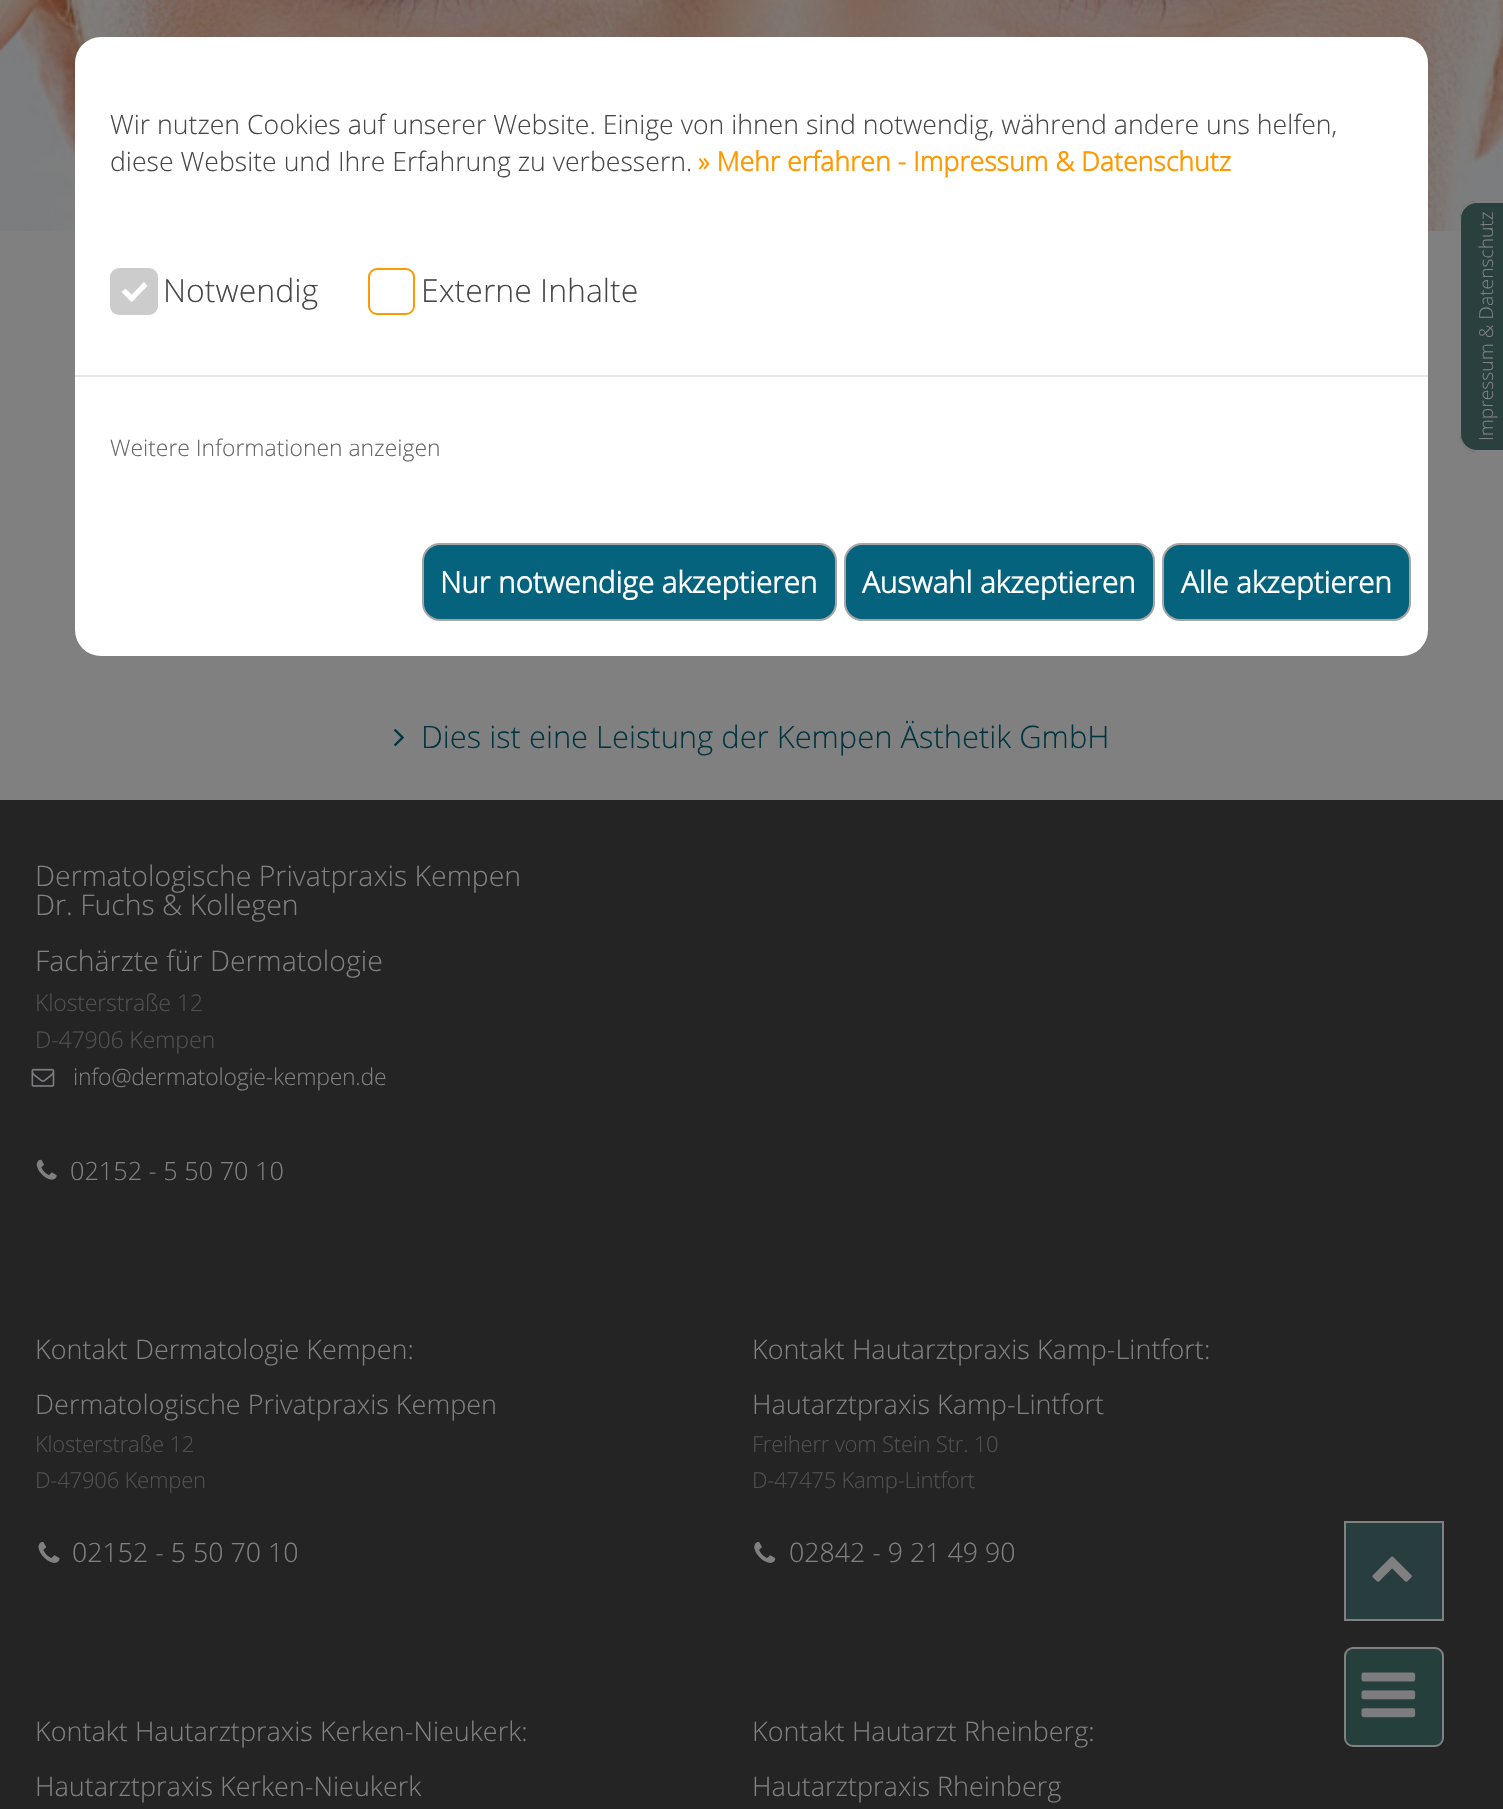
void draw(SkCanvas* canvas) {
    SkPaint paint;
    paint.setAntiAlias(true);
    auto spacedText = [&](const char* s, float x, float y, const SkFont& font, const SkPaint& ink, float letter, float word) {
        std::vector<SkGlyphID> glyphs(font.countText(s, strlen(s), SkTextEncoding::kUTF8));
        std::vector<float> xs(glyphs.size());
        font.textToGlyphs(s, strlen(s), SkTextEncoding::kUTF8, glyphs);
        font.getXPos(glyphs, xs, x);
        float extra = 0;
        for (size_t i = 0; i < glyphs.size(); i++) {
            xs[i] += extra;
            extra += letter + word * (glyphs[i] == font.unicharToGlyph(' '));
        }
        canvas->drawTextBlob(SkTextBlob::MakeFromPosHGlyphs(glyphs, xs, y, font), 0, 0, ink);
    };
    canvas->clear(0xFF808080);
    canvas->drawImageRect(SkImages::DeferredFromEncodedData(SkData::MakeFromFileName("img1.png")), SkRect::MakeXYWH(0, 0, 1503, 231), SkSamplingOptions());
    paint.setColor(0xFFFFFFFF);
    canvas->drawRoundRect(SkRect::MakeXYWH(75, 37, 1353, 619), 26, 26, paint);
    SkFont font1(fontMgr->matchFamilyStyle("Open Sans", SkFontStyle(300, SkFontStyle::kNormal_Width, SkFontStyle::kUpright_Slant)), 26.65f);
    font1.setSubpixel(true);
    paint.setColor(0xFF474747);
    canvas->drawString("Wir nutzen Cookies auf unserer Website. Einige von ihnen sind notwendig, während andere uns helfen,", 110, 134, font1, paint);
    canvas->drawString("diese Website und Ihre Erfahrung zu verbessern.", 110, 171, font1, paint);
    SkFont font2(fontMgr->matchFamilyStyle("Open Sans", SkFontStyle::Bold()), 26.65f);
    font2.setSubpixel(true);
    paint.setColor(0xFFFF9900);
    canvas->drawString("» Mehr erfahren - Impressum & Datenschutz", 698, 171, font2, paint);
    paint.setColor(0xFFCCCCCC);
    canvas->drawRoundRect(SkRect::MakeXYWH(111, 269, 46, 45), 8, 8, paint);
    paint.setStyle(SkPaint::kStroke_Style);
    paint.setStrokeWidth(2);
    canvas->drawRoundRect(SkRect::MakeXYWH(111, 269, 46, 45), 8, 8, paint);
    paint.setStyle(SkPaint::kFill_Style);
    paint.setColor(0xFFFFFFFF);
    canvas->drawPath(SkPathBuilder().moveTo(144, 282).lineTo(147.5f, 286).lineTo(131.5f, 302).lineTo(128, 298.5f).close().detach(), paint);
    canvas->drawPath(SkPathBuilder().moveTo(125.5f, 288.5f).lineTo(135.5f, 298.5f).lineTo(131.5f, 302).lineTo(121.5f, 292).close().detach(), paint);
    SkFont font3(fontMgr->matchFamilyStyle("Open Sans", SkFontStyle(300, SkFontStyle::kNormal_Width, SkFontStyle::kUpright_Slant)), 32);
    font3.setSubpixel(true);
    paint.setColor(0xFF474747);
    canvas->drawString("Notwendig", 163, 302, font3, paint);
    paint.setStyle(SkPaint::kStroke_Style);
    paint.setColor(0xFFFF9900);
    canvas->drawRoundRect(SkRect::MakeXYWH(369, 269, 45, 45), 8, 8, paint);
    paint.setStyle(SkPaint::kFill_Style);
    paint.setColor(0xFF474747);
    canvas->drawString("Externe Inhalte", 421, 302, font3, paint);
    paint.setColor(0xFFE7E7E7);
    canvas->drawRect(SkRect::MakeXYWH(75, 375, 1353, 2), paint);
    SkFont font4(fontMgr->matchFamilyStyle("Open Sans", SkFontStyle(300, SkFontStyle::kNormal_Width, SkFontStyle::kUpright_Slant)), 22.9f);
    font4.setSubpixel(true);
    paint.setColor(0xFF666666);
    canvas->drawString("Weitere Informationen anzeigen", 110, 456, font4, paint);
    paint.setColor(0xFF06637E);
    canvas->drawRoundRect(SkRect::MakeXYWH(423, 544, 413, 76), 17, 17, paint);
    paint.setStyle(SkPaint::kStroke_Style);
    paint.setColor(0xFFA5A5A5);
    canvas->drawRoundRect(SkRect::MakeXYWH(423, 544, 413, 76), 17, 17, paint);
    SkFont font5(fontMgr->matchFamilyStyle("Open Sans", SkFontStyle::Bold()), 29.6f);
    font5.setSubpixel(true);
    paint.setStyle(SkPaint::kFill_Style);
    paint.setColor(0xFFFFFFFF);
    canvas->drawString("Nur notwendige akzeptieren", 440, 593, font5, paint);
    paint.setColor(0xFF06637E);
    canvas->drawRoundRect(SkRect::MakeXYWH(845, 544, 309, 76), 17, 17, paint);
    paint.setStyle(SkPaint::kStroke_Style);
    paint.setColor(0xFFA5A5A5);
    canvas->drawRoundRect(SkRect::MakeXYWH(845, 544, 309, 76), 17, 17, paint);
    paint.setStyle(SkPaint::kFill_Style);
    paint.setColor(0xFFFFFFFF);
    canvas->drawString("Auswahl akzeptieren", 862, 593, font5, paint);
    paint.setColor(0xFF06637E);
    canvas->drawRoundRect(SkRect::MakeXYWH(1163, 544, 247, 76), 17, 17, paint);
    paint.setStyle(SkPaint::kStroke_Style);
    paint.setColor(0xFFA5A5A5);
    canvas->drawRoundRect(SkRect::MakeXYWH(1163, 544, 247, 76), 17, 17, paint);
    paint.setStyle(SkPaint::kFill_Style);
    paint.setColor(0xFFFFFFFF);
    canvas->drawString("Alle akzeptieren", 1181, 593, font5, paint);
    paint.setColor(0xFF29403F);
    canvas->drawPath(SkPathBuilder().moveTo(1460, 434).lineTo(1460, 219).cubicTo(1460, 209, 1467, 201, 1477, 201).lineTo(1503, 201).lineTo(1503, 452).lineTo(1477, 452).cubicTo(1467, 452, 1460, 444, 1460, 434).close().detach(), paint);
    paint.setColor(0xFF808080);
    canvas->drawPath(SkPathBuilder(SkPathFillType::kEvenOdd).moveTo(1460, 434).lineTo(1460, 219).cubicTo(1460, 209, 1467, 201, 1477, 201).lineTo(1503, 201).lineTo(1503, 452).lineTo(1477, 452).cubicTo(1467, 452, 1460, 444, 1460, 434).close().moveTo(1461, 434).lineTo(1461, 219).cubicTo(1461, 210, 1468, 203, 1477, 203).lineTo(1503, 203).lineTo(1503, 450).lineTo(1477, 450).cubicTo(1468, 450, 1461, 443, 1461, 434).close().detach(), paint);
    SkFont font6(fontMgr->matchFamilyStyle("Open Sans", SkFontStyle(300, SkFontStyle::kNormal_Width, SkFontStyle::kUpright_Slant)), 19.25f);
    font6.setSubpixel(true);
    canvas->save();
    canvas->rotate(-90, 1493, 441);
    canvas->drawString("Impressum & Datenschutz", 1493, 441, font6, paint);
    canvas->restore();
    canvas->drawImageRect(SkImages::DeferredFromEncodedData(SkData::MakeFromFileName("img2.png")), SkRect::MakeXYWH(394, 729, 10, 18), SkSamplingOptions());
    SkFont font7(fontMgr->matchFamilyStyle("Open Sans", SkFontStyle(300, SkFontStyle::kNormal_Width, SkFontStyle::kUpright_Slant)), 30.9f);
    font7.setSubpixel(true);
    paint.setColor(0xFF003441);
    canvas->drawString("Dies ist eine Leistung der Kempen Ästhetik GmbH", 421, 748, font7, paint);
    paint.setColor(0xFF242424);
    canvas->drawRect(SkRect::MakeXYWH(0, 800, 1503, 1009), paint);
    SkFont font8(fontMgr->matchFamilyStyle("Open Sans", SkFontStyle(300, SkFontStyle::kNormal_Width, SkFontStyle::kUpright_Slant)), 28.4f);
    font8.setSubpixel(true);
    paint.setColor(0xFF808080);
    canvas->drawString("Dermatologische Privatpraxis Kempen", 35, 886, font8, paint);
    canvas->drawString("Dr. Fuchs & Kollegen", 35, 915, font8, paint);
    canvas->drawString("Fachärzte für Dermatologie", 35, 971, font8, paint);
    SkFont font9(fontMgr->matchFamilyStyle("Open Sans", SkFontStyle(300, SkFontStyle::kNormal_Width, SkFontStyle::kUpright_Slant)), 23.25f);
    font9.setSubpixel(true);
    paint.setColor(0xFF505050);
    spacedText("Klosterstraße 12", 35, 1011, font9, paint, -0.25f, 0);
    spacedText("D-47906 Kempen", 35, 1048, font9, paint, -0.25f, 0);
    canvas->drawImageRect(SkImages::DeferredFromEncodedData(SkData::MakeFromFileName("img3.png")), SkRect::MakeXYWH(31, 1068, 24, 19), SkSamplingOptions());
    SkFont font10(fontMgr->matchFamilyStyle("Open Sans", SkFontStyle(300, SkFontStyle::kNormal_Width, SkFontStyle::kUpright_Slant)), 23);
    font10.setSubpixel(true);
    paint.setColor(0xFF808080);
    spacedText("info@dermatologie-kempen.de", 73, 1085, font10, paint, -0.25f, 0);
    canvas->drawImageRect(SkImages::DeferredFromEncodedData(SkData::MakeFromFileName("img4.png")), SkRect::MakeXYWH(36, 1159, 21, 21), SkSamplingOptions());
    SkFont font11(fontMgr->matchFamilyStyle("Open Sans", SkFontStyle(300, SkFontStyle::kNormal_Width, SkFontStyle::kUpright_Slant)), 25.25f);
    font11.setSubpixel(true);
    canvas->drawString("02152 - 5 50 70 10", 70, 1180, font11, paint);
    SkFont font12(fontMgr->matchFamilyStyle("Open Sans", SkFontStyle(300, SkFontStyle::kNormal_Width, SkFontStyle::kUpright_Slant)), 27);
    font12.setSubpixel(true);
    canvas->drawString("Kontakt Dermatologie Kempen:", 35, 1359, font12, paint);
    canvas->drawString("Dermatologische Privatpraxis Kempen", 35, 1414, font12, paint);
    SkFont font13(fontMgr->matchFamilyStyle("Open Sans", SkFontStyle(300, SkFontStyle::kNormal_Width, SkFontStyle::kUpright_Slant)), 22.1f);
    font13.setSubpixel(true);
    paint.setColor(0xFF505050);
    spacedText("Klosterstraße 12", 35, 1452, font13, paint, -0.25f, 0);
    spacedText("D-47906 Kempen", 35, 1488, font13, paint, -0.25f, 0);
    canvas->drawImageRect(SkImages::DeferredFromEncodedData(SkData::MakeFromFileName("img5.png")), SkRect::MakeXYWH(38, 1541, 22, 22), SkSamplingOptions());
    SkFont font14(fontMgr->matchFamilyStyle("Open Sans", SkFontStyle(300, SkFontStyle::kNormal_Width, SkFontStyle::kUpright_Slant)), 26.75f);
    font14.setSubpixel(true);
    paint.setColor(0xFF808080);
    canvas->drawString("02152 - 5 50 70 10", 72, 1562, font14, paint);
    canvas->drawString("Kontakt Hautarztpraxis Kamp-Lintfort:", 752, 1359, font12, paint);
    canvas->drawString("Hautarztpraxis Kamp-Lintfort", 752, 1414, font12, paint);
    paint.setColor(0xFF505050);
    spacedText("Freiherr vom Stein Str. 10", 752, 1452, font13, paint, -0.25f, 0);
    spacedText("D-47475 Kamp-Lintfort", 752, 1488, font13, paint, -0.25f, 0);
    canvas->drawImageRect(SkImages::DeferredFromEncodedData(SkData::MakeFromFileName("img6.png")), SkRect::MakeXYWH(754, 1541, 22, 22), SkSamplingOptions());
    paint.setColor(0xFF808080);
    canvas->drawString("02842 - 9 21 49 90", 789, 1562, font14, paint);
    canvas->drawString("Kontakt Hautarztpraxis Kerken-Nieukerk:", 35, 1741, font12, paint);
    canvas->drawString("Hautarztpraxis Kerken-Nieukerk", 35, 1796, font12, paint);
    canvas->drawString("Kontakt Hautarzt Rheinberg:", 752, 1741, font12, paint);
    canvas->drawString("Hautarztpraxis Rheinberg", 752, 1796, font12, paint);
    paint.setColor(0xFF283D3D);
    canvas->drawRect(SkRect::MakeXYWH(1345, 1522, 98, 98), paint);
    paint.setStyle(SkPaint::kStroke_Style);
    paint.setColor(0xFF808080);
    canvas->drawRect(SkRect::MakeXYWH(1345, 1522, 98, 98), paint);
    canvas->drawImageRect(SkImages::DeferredFromEncodedData(SkData::MakeFromFileName("img7.png")), SkRect::MakeXYWH(1372, 1556, 40, 26), SkSamplingOptions());
    paint.setStyle(SkPaint::kFill_Style);
    paint.setColor(0xFF25403C);
    canvas->drawRoundRect(SkRect::MakeXYWH(1345, 1648, 98, 98), 8, 8, paint);
    paint.setStyle(SkPaint::kStroke_Style);
    paint.setColor(0xFF808080);
    canvas->drawRoundRect(SkRect::MakeXYWH(1345, 1648, 98, 98), 8, 8, paint);
    canvas->drawImageRect(SkImages::DeferredFromEncodedData(SkData::MakeFromFileName("img8.png")), SkRect::MakeXYWH(1361, 1672, 55, 46), SkSamplingOptions());
}
